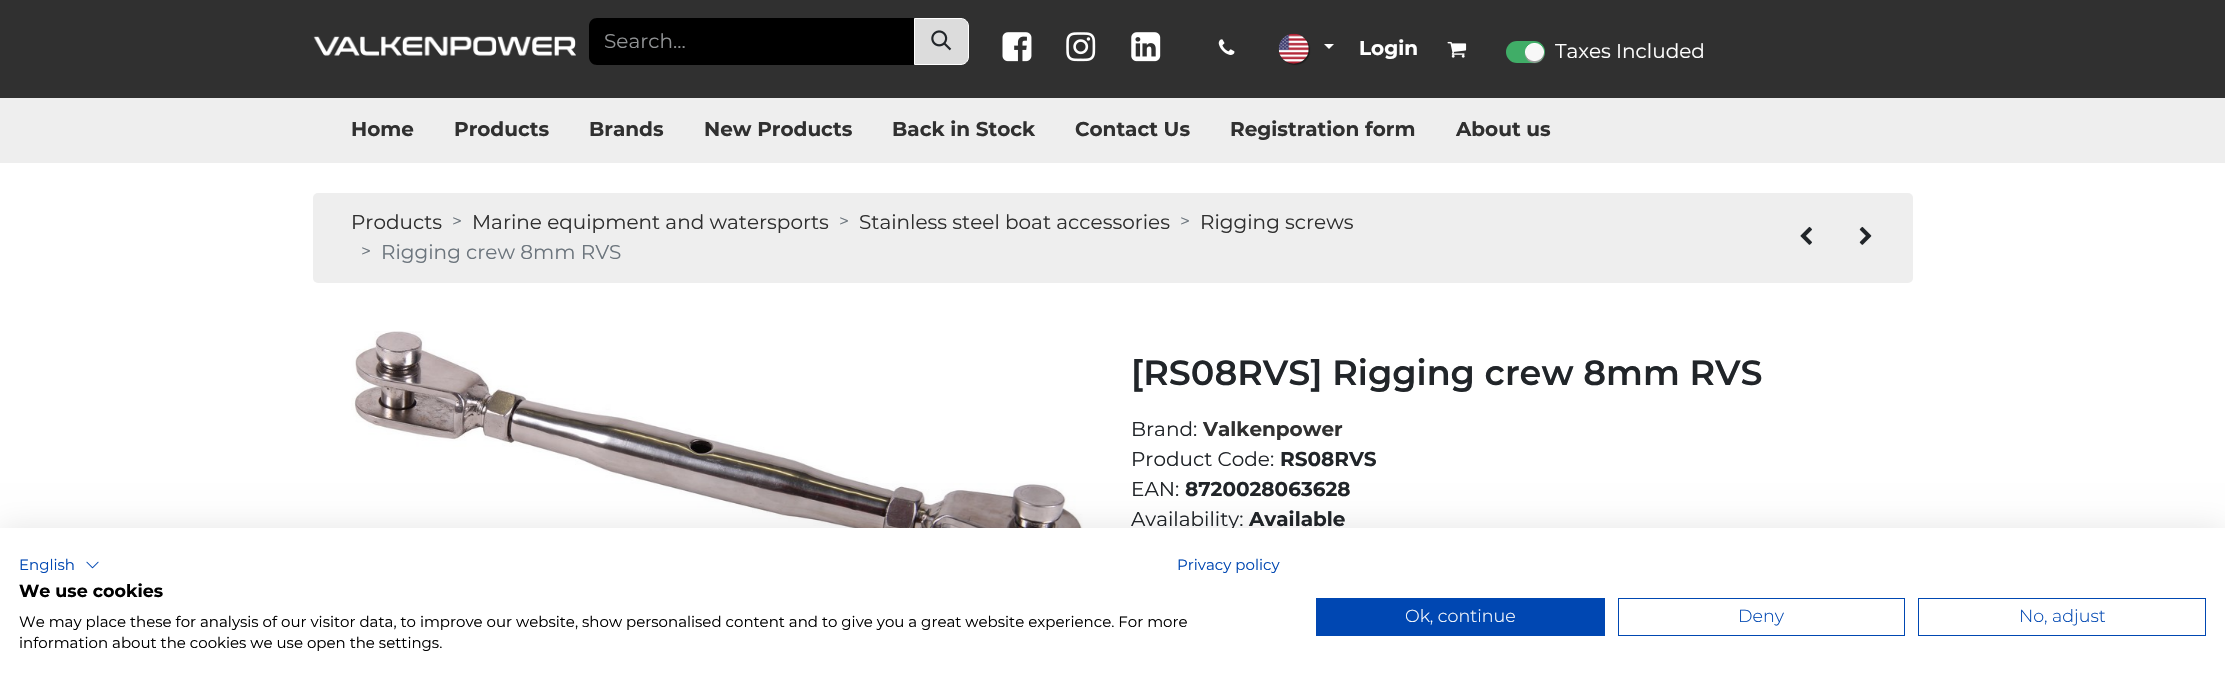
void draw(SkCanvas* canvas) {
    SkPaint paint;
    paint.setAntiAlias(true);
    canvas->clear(0xFFFFFFFF);
    paint.setColor(0xFF303030);
    canvas->drawRect(SkRect::MakeXYWH(0, 0, 2225, 98), paint);
    canvas->drawImageRect(SkImages::DeferredFromEncodedData(SkData::MakeFromFileName("img1.png")), SkRect::MakeXYWH(313, 36, 263, 20), SkSamplingOptions());
    paint.setColor(0xFF000000);
    canvas->drawPath(SkPathBuilder().moveTo(597, 18).lineTo(915, 18).lineTo(915, 65).lineTo(597, 65).cubicTo(592.5f, 65, 589, 61.5f, 589, 57).lineTo(589, 26).cubicTo(589, 21.5f, 592.5f, 18, 597, 18).close().detach(), paint);
    SkFont font1(fontMgr->matchFamilyStyle("Montserrat", SkFontStyle::Normal()), 20);
    font1.setSubpixel(true);
    paint.setColor(0xFF909294);
    canvas->drawString("Search...", 604, 48, font1, paint);
    paint.setColor(0xFFDCDCDC);
    canvas->drawPath(SkPathBuilder().moveTo(914.5f, 18.5f).lineTo(961, 18.5f).cubicTo(965, 18.5f, 968.5f, 22, 968.5f, 26).lineTo(968.5f, 57).cubicTo(968.5f, 61, 965, 64.5f, 961, 64.5f).lineTo(914.5f, 64.5f).close().detach(), paint);
    paint.setStyle(SkPaint::kStroke_Style);
    paint.setStrokeWidth(1);
    paint.setColor(0xFFFFFFFF);
    canvas->drawPath(SkPathBuilder().moveTo(914.5f, 18.5f).lineTo(961, 18.5f).cubicTo(965, 18.5f, 968.5f, 22, 968.5f, 26).lineTo(968.5f, 57).cubicTo(968.5f, 61, 965, 64.5f, 961, 64.5f).lineTo(914.5f, 64.5f).close().detach(), paint);
    canvas->drawImageRect(SkImages::DeferredFromEncodedData(SkData::MakeFromFileName("img2.png")), SkRect::MakeXYWH(931, 30, 21, 21), SkSamplingOptions());
    canvas->drawImageRect(SkImages::DeferredFromEncodedData(SkData::MakeFromFileName("img3.png")), SkRect::MakeXYWH(1002, 32, 30, 30), SkSamplingOptions());
    canvas->drawImageRect(SkImages::DeferredFromEncodedData(SkData::MakeFromFileName("img4.png")), SkRect::MakeXYWH(1066, 32, 30, 30), SkSamplingOptions());
    canvas->drawImageRect(SkImages::DeferredFromEncodedData(SkData::MakeFromFileName("img5.png")), SkRect::MakeXYWH(1131, 32, 30, 30), SkSamplingOptions());
    canvas->drawImageRect(SkImages::DeferredFromEncodedData(SkData::MakeFromFileName("img6.png")), SkRect::MakeXYWH(1218, 39, 17, 16), SkSamplingOptions());
    paint.setStyle(SkPaint::kFill_Style);
    paint.setColor(0x6E000000);
    paint.setMaskFilter(SkMaskFilter::MakeBlur(kNormal_SkBlurStyle, 0.5f));
    canvas->drawRoundRect(SkRect::MakeXYWH(1280, 35, 30, 30), 15, 15, paint);
    paint.setMaskFilter(nullptr);
    canvas->drawImageRect(SkImages::DeferredFromEncodedData(SkData::MakeFromFileName("img7.png")), SkRect::MakeXYWH(1278, 33, 31, 31), SkSamplingOptions());
    paint.setColor(0xFFFFFFFF);
    canvas->drawPath(SkPathBuilder().moveTo(1324, 44).lineTo(1334, 44).lineTo(1329, 49).close().detach(), paint);
    SkFont font2(fontMgr->matchFamilyStyle("Montserrat", SkFontStyle::Bold()), 20);
    font2.setSubpixel(true);
    canvas->drawString("Login", 1359, 55, font2, paint);
    canvas->drawImageRect(SkImages::DeferredFromEncodedData(SkData::MakeFromFileName("img8.png")), SkRect::MakeXYWH(1447, 41, 20, 17), SkSamplingOptions());
    paint.setColor(0xFF40AD67);
    canvas->drawRoundRect(SkRect::MakeXYWH(1506, 41, 39, 22), 11, 11, paint);
    paint.setColor(0xFF9E9E9E);
    paint.setMaskFilter(SkMaskFilter::MakeBlur(kNormal_SkBlurStyle, 0.5f));
    canvas->drawRoundRect(SkRect::MakeXYWH(1525, 44, 19, 19), 9.5f, 9.5f, paint);
    paint.setMaskFilter(nullptr);
    paint.setColor(0xFFF7F7F7);
    canvas->drawRoundRect(SkRect::MakeXYWH(1525.5f, 43.5f, 18, 17), 8.5f, 8.5f, paint);
    paint.setStyle(SkPaint::kStroke_Style);
    paint.setColor(0xFFFFFFFF);
    canvas->drawRoundRect(SkRect::MakeXYWH(1525.5f, 43.5f, 18, 17), 8.5f, 8.5f, paint);
    paint.setStyle(SkPaint::kFill_Style);
    canvas->drawString("Taxes Included", 1555, 58, font1, paint);
    paint.setColor(0xFFEEEEEE);
    canvas->drawRect(SkRect::MakeXYWH(0, 98, 2225, 65), paint);
    paint.setColor(0xFF303030);
    canvas->drawString("Home", 351, 136, font2, paint);
    canvas->drawString("Products", 454, 136, font2, paint);
    canvas->drawString("Brands", 589, 136, font2, paint);
    canvas->drawString("New Products", 704, 136, font2, paint);
    canvas->drawString("Back in Stock", 892, 136, font2, paint);
    canvas->drawString("Contact Us", 1075, 136, font2, paint);
    canvas->drawString("Registration form", 1230, 136, font2, paint);
    canvas->drawString("About us", 1456, 136, font2, paint);
    paint.setColor(0xFFEEEEEE);
    canvas->drawRoundRect(SkRect::MakeXYWH(313, 193, 1600, 90), 5, 5, paint);
    paint.setColor(0xFF303030);
    canvas->drawString("Products", 351, 229, font1, paint);
    SkFont font3(fontMgr->matchFamilyStyle("Montserrat", SkFontStyle::Normal()), 17.5f);
    font3.setSubpixel(true);
    paint.setColor(0xFF6C757D);
    canvas->drawString(">", 452, 227, font3, paint);
    paint.setColor(0xFF303030);
    canvas->drawString("Marine equipment and watersports", 472, 229, font1, paint);
    paint.setColor(0xFF6C757D);
    canvas->drawString(">", 839, 227, font3, paint);
    paint.setColor(0xFF303030);
    canvas->drawString("Stainless steel boat accessories", 859, 229, font1, paint);
    paint.setColor(0xFF6C757D);
    canvas->drawString(">", 1180, 227, font3, paint);
    paint.setColor(0xFF303030);
    canvas->drawString("Rigging screws", 1200, 229, font1, paint);
    paint.setColor(0xFF6C757D);
    canvas->drawString(">", 361, 257, font3, paint);
    canvas->drawString("Rigging crew 8mm RVS", 381, 259, font1, paint);
    canvas->drawImageRect(SkImages::DeferredFromEncodedData(SkData::MakeFromFileName("img9.png")), SkRect::MakeXYWH(1800, 226, 12, 19), SkSamplingOptions());
    canvas->drawImageRect(SkImages::DeferredFromEncodedData(SkData::MakeFromFileName("img10.png")), SkRect::MakeXYWH(1859, 226, 13, 19), SkSamplingOptions());
    canvas->drawImageRect(SkImages::DeferredFromEncodedData(SkData::MakeFromFileName("img11.png")), SkRect::MakeXYWH(351, 331, 732, 197), SkSamplingOptions());
    SkFont font4(fontMgr->matchFamilyStyle("Montserrat", SkFontStyle(600, SkFontStyle::kNormal_Width, SkFontStyle::kUpright_Slant)), 35);
    font4.setSubpixel(true);
    paint.setColor(0xFF212529);
    canvas->drawString("[RS08RVS] Rigging crew 8mm RVS", 1131, 385, font4, paint);
    canvas->drawString("Brand:", 1131, 436, font1, paint);
    paint.setColor(0xFF303030);
    canvas->drawString("Valkenpower", 1203, 436, font2, paint);
    paint.setColor(0xFF212529);
    canvas->drawString("Product Code:", 1131, 466, font1, paint);
    canvas->drawString("RS08RVS", 1280, 466, font2, paint);
    canvas->drawString("EAN:", 1131, 496, font1, paint);
    canvas->drawString("8720028063628", 1185, 496, font2, paint);
    canvas->drawString("Availability:", 1131, 526, font1, paint);
    canvas->drawString("Available", 1249, 526, font2, paint);
    paint.setColor(0x1A000000);
    paint.setMaskFilter(SkMaskFilter::MakeBlur(kNormal_SkBlurStyle, 15));
    canvas->drawRect(SkRect::MakeXYWH(0, 528, 2225, 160), paint);
    paint.setMaskFilter(nullptr);
    paint.setColor(0xFFFFFFFF);
    canvas->drawRect(SkRect::MakeXYWH(0, 528, 2225, 159), paint);
    SkFont font5(fontMgr->matchFamilyStyle("Montserrat", SkFontStyle::Normal()), 15);
    font5.setSubpixel(true);
    paint.setColor(0xFF0047B2);
    canvas->drawString("English", 19, 570, font5, paint);
    canvas->drawImageRect(SkImages::DeferredFromEncodedData(SkData::MakeFromFileName("img12.png")), SkRect::MakeXYWH(86, 561, 13, 8), SkSamplingOptions());
    canvas->drawString("Privacy policy", 1177, 570, font5, paint);
    SkFont font6(fontMgr->matchFamilyStyle("Montserrat", SkFontStyle::Bold()), 17.5f);
    font6.setSubpixel(true);
    paint.setColor(0xFF000000);
    canvas->drawString("We use cookies", 19, 597, font6, paint);
    canvas->drawString("We may place these for analysis of our visitor data, to improve our website, show personalised content and to give you a great website experience. For more", 19, 627, font5, paint);
    canvas->drawString("information about the cookies we use open the settings.", 19, 648, font5, paint);
    paint.setColor(0xFF0047B2);
    canvas->drawRect(SkRect::MakeXYWH(1316, 598, 289, 38), paint);
    SkFont font7(fontMgr->matchFamilyStyle("Montserrat", SkFontStyle(300, SkFontStyle::kNormal_Width, SkFontStyle::kUpright_Slant)), 17.5f);
    font7.setSubpixel(true);
    paint.setColor(0xFFFFFFFF);
    canvas->drawString("Ok, continue", 1405, 622, font7, paint);
    paint.setStyle(SkPaint::kStroke_Style);
    paint.setColor(0xFF0047B2);
    canvas->drawRect(SkRect::MakeXYWH(1618.5f, 598.5f, 286, 37), paint);
    paint.setStyle(SkPaint::kFill_Style);
    canvas->drawString("Deny", 1738, 622, font7, paint);
    paint.setStyle(SkPaint::kStroke_Style);
    canvas->drawRect(SkRect::MakeXYWH(1918.5f, 598.5f, 287, 37), paint);
    paint.setStyle(SkPaint::kFill_Style);
    canvas->drawString("No, adjust", 2019, 622, font7, paint);
}
